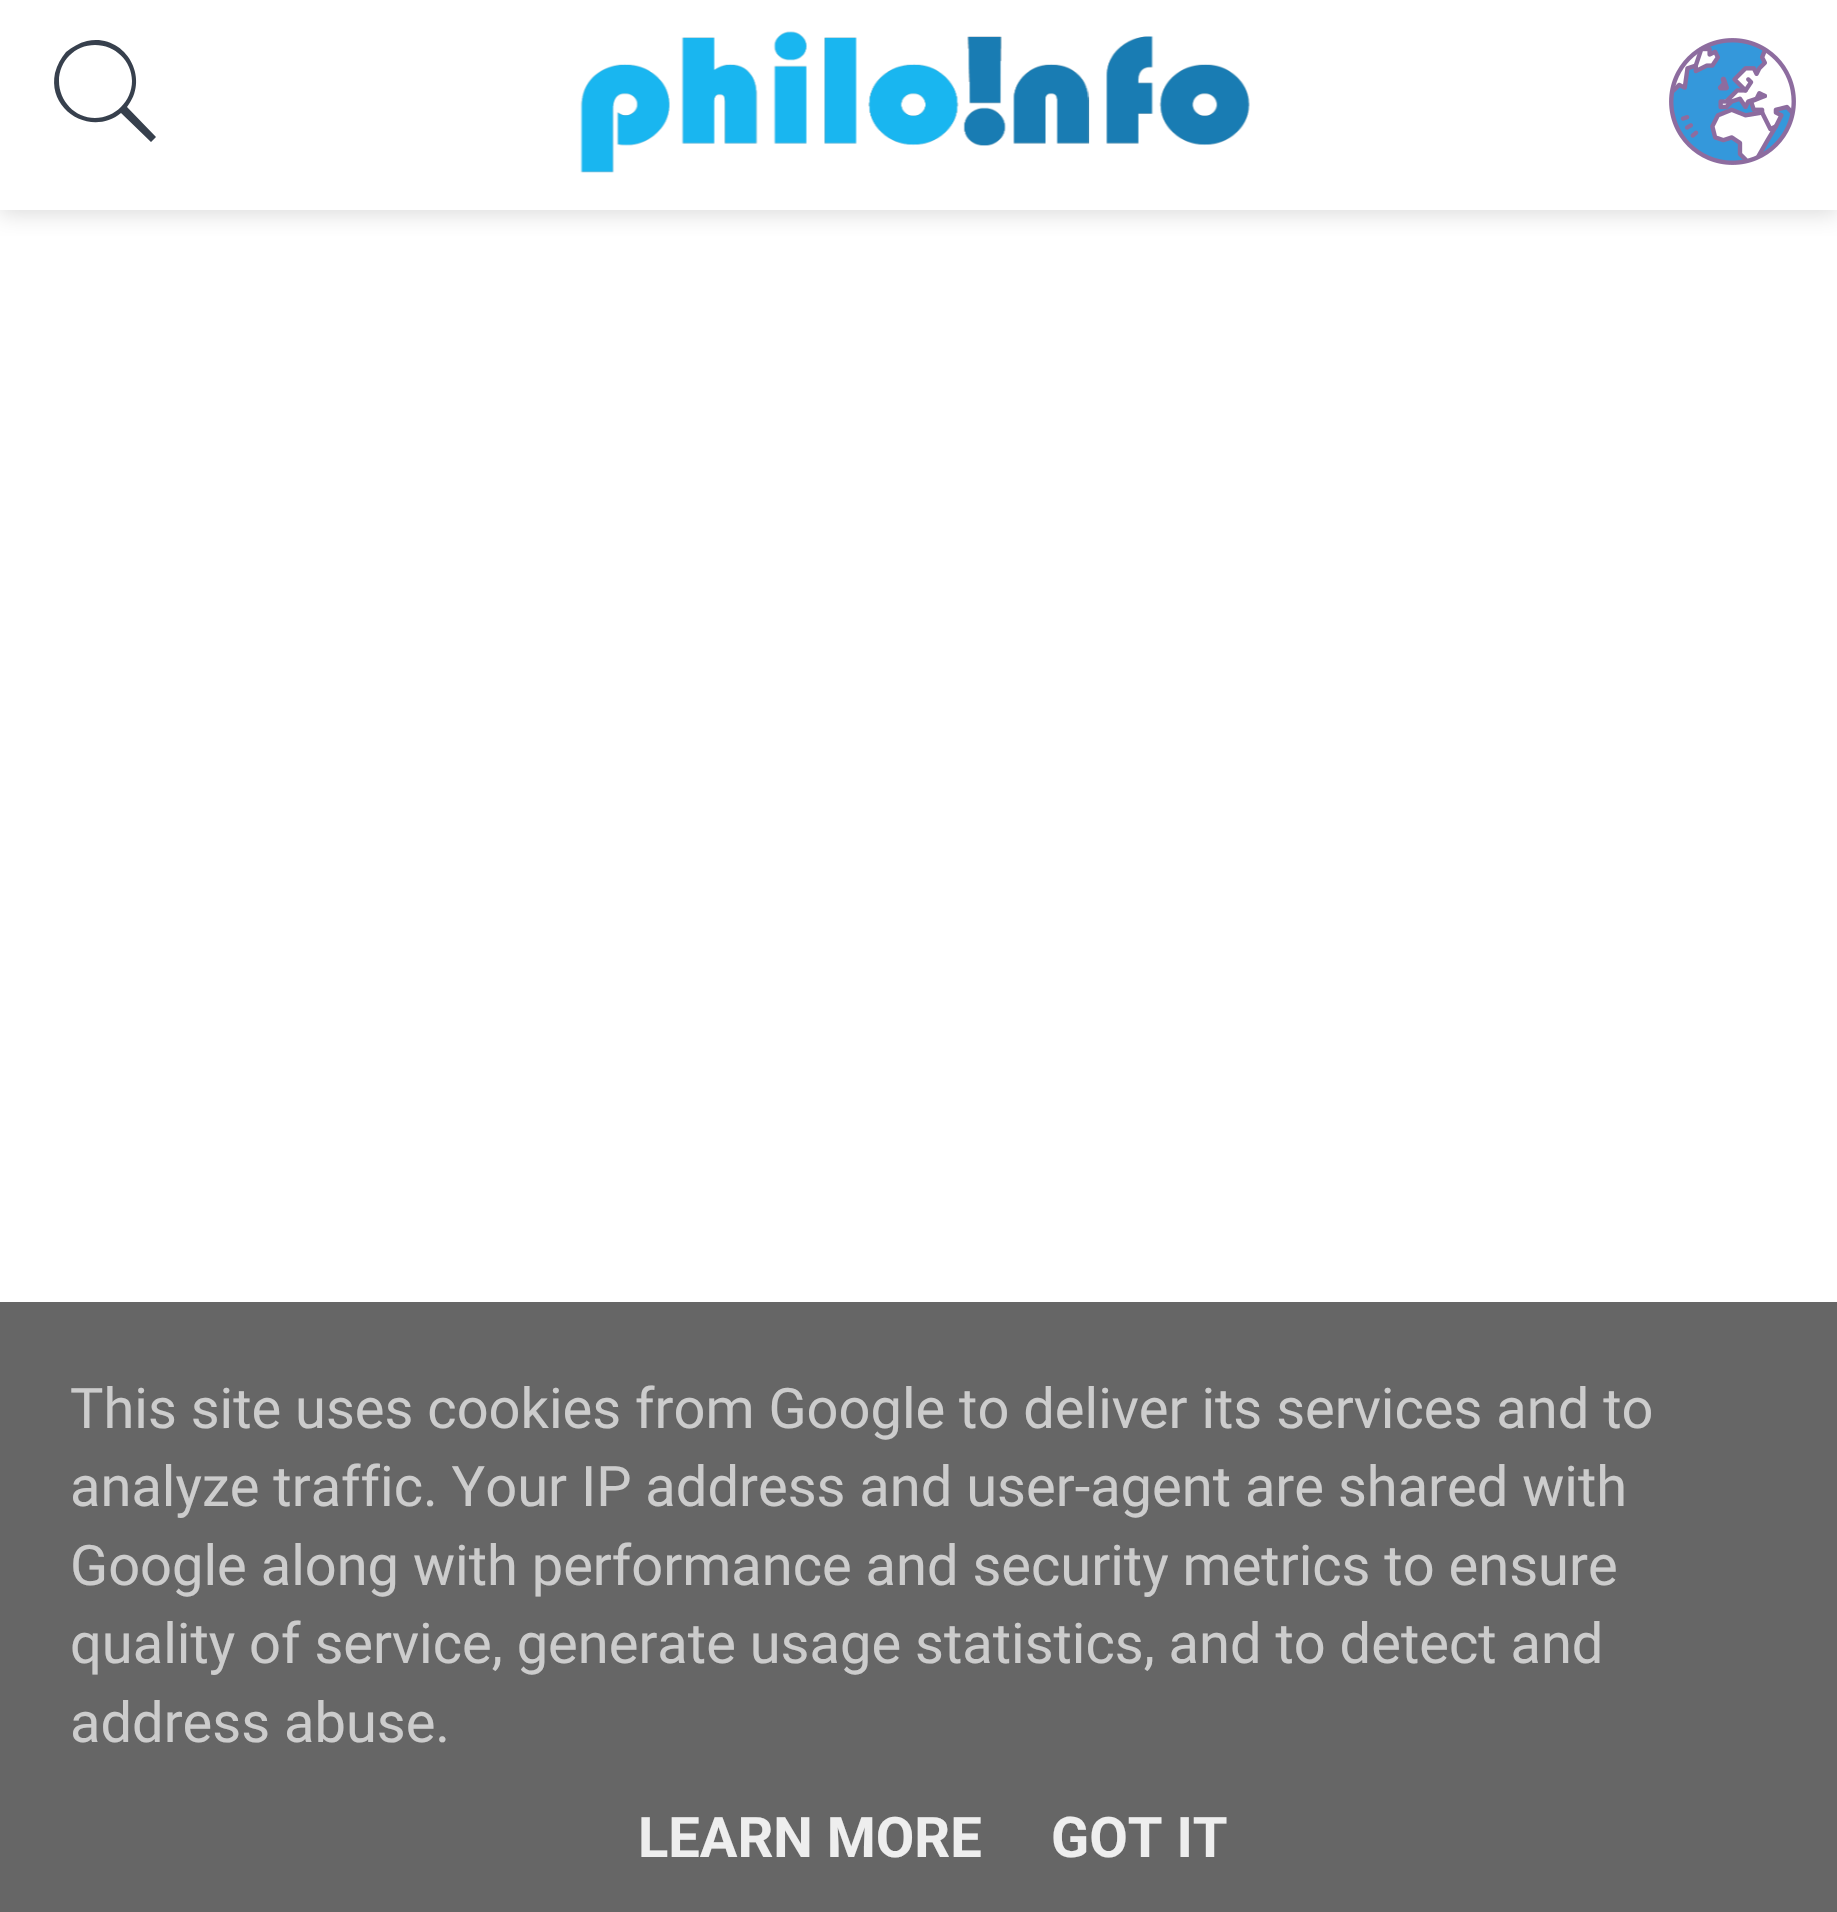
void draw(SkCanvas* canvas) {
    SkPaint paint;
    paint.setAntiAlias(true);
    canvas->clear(0xFFFFFFFF);
    canvas->save();
    canvas->clipRect(SkRect::MakeXYWH(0, 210, 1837, 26));
    paint.setColor(0xFFDCDCDC);
    paint.setMaskFilter(SkMaskFilter::MakeBlur(kNormal_SkBlurStyle, 10.5f));
    canvas->drawRect(SkRect::MakeXYWH(0, 4, 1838, 210), paint);
    paint.setMaskFilter(nullptr);
    canvas->restore();
    paint.setColor(0xFF37404D);
    canvas->drawPath(SkPathBuilder().moveTo(156, 137).lineTo(127, 107).cubicTo(151, 78, 125, 33, 87, 41).cubicTo(79, 43, 72, 47, 66, 52).cubicTo(61, 58, 57, 65, 55, 73).cubicTo(47, 111, 92, 137, 121, 113).lineTo(151, 142).close().moveTo(59, 81).cubicTo(59, 61, 75, 45, 95, 45).cubicTo(115, 45, 132, 61, 132, 81).cubicTo(132, 101, 115, 118, 95, 118).cubicTo(75, 118, 59, 101, 59, 81).close().detach(), paint);
    canvas->drawImageRect(SkImages::DeferredFromEncodedData(SkData::MakeFromFileName("img1.png")), SkRect::MakeXYWH(580, 31, 670, 142), SkSamplingOptions());
    canvas->drawImageRect(SkImages::DeferredFromEncodedData(SkData::MakeFromFileName("img2.png")), SkRect::MakeXYWH(1669, 38, 127, 127), SkSamplingOptions());
    paint.setColor(0xFF666666);
    canvas->drawRect(SkRect::MakeXYWH(0, 1302, 1837, 610), paint);
    SkFont font1(fontMgr->matchFamilyStyle("Roboto", SkFontStyle::Normal()), 56);
    font1.setSubpixel(true);
    paint.setColor(0xFFCCCCCC);
    canvas->drawString("This site uses cookies from Google to deliver its services and to", 70, 1428, font1, paint);
    canvas->drawString("analyze traffic. Your IP address and user-agent are shared with", 70, 1506, font1, paint);
    canvas->drawString("Google along with performance and security metrics to ensure", 70, 1585, font1, paint);
    canvas->drawString("quality of service, generate usage statistics, and to detect and", 70, 1663, font1, paint);
    canvas->drawString("address abuse.", 70, 1742, font1, paint);
    SkFont font2(fontMgr->matchFamilyStyle("Roboto", SkFontStyle::Bold()), 56);
    font2.setSubpixel(true);
    paint.setColor(0xFFEEEEEE);
    canvas->drawString("LEARN MORE", 638, 1857, font2, paint);
    canvas->drawString("GOT IT", 1051, 1857, font2, paint);
}
